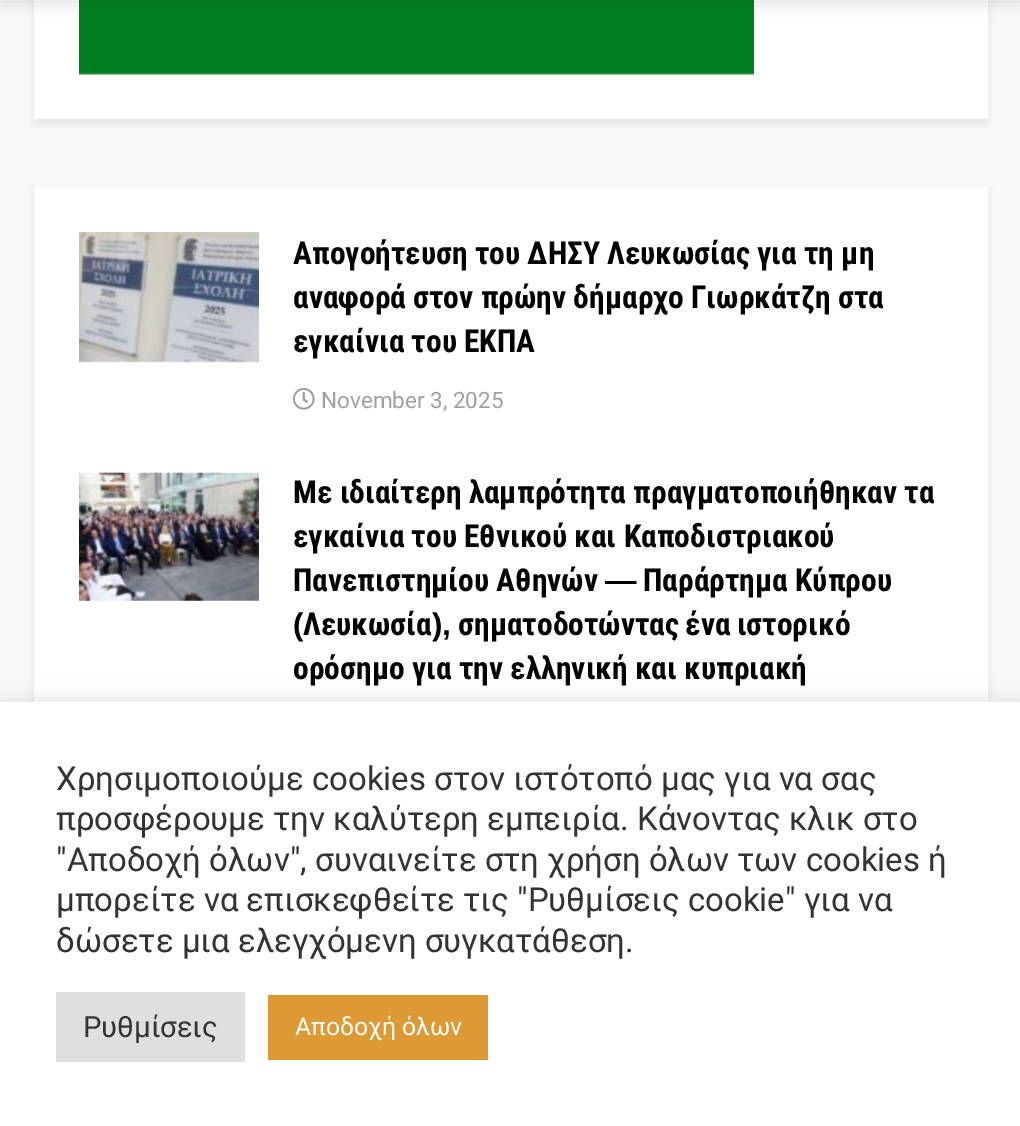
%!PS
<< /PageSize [1020 1126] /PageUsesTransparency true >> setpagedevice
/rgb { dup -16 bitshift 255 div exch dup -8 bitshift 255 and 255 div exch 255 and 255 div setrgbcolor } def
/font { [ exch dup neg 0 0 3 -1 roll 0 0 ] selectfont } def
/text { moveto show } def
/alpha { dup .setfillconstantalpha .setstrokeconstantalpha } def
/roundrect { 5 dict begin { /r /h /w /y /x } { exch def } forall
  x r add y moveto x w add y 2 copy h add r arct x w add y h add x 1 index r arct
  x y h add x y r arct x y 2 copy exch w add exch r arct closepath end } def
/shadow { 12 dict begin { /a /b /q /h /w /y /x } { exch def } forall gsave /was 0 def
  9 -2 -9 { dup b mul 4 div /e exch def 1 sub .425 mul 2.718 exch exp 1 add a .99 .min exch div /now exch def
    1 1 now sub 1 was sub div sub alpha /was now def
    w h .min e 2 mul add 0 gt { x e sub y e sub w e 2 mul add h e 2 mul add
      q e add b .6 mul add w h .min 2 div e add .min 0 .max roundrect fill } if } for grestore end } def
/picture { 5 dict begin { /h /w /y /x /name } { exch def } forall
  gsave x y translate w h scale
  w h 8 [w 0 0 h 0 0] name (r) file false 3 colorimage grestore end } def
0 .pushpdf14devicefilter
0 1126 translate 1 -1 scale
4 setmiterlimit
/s1 { /RobotoCondensed-Bold 31.5 font 16#000000 rgb } def
/s2 { /Roboto-Regular 22.5 font 16#A0A0A0 rgb } def
/s3 { /LiberationSans-Bold 31.5 font 16#000000 rgb } def
/s4 { /Roboto-Regular 33 font 16#333333 rgb } def
/s5 { /Roboto-Regular 29.25 font 16#333333 rgb } def
/s6 { /Roboto-Regular 24.75 font 16#FFFFFF rgb } def
16#F9F9F9 rgb
0 0 1020 1126 rectfill
16#000000 rgb
34 -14 954 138 0 4.5 0.08 shadow
16#FFFFFF rgb
34 0 954 119 rectfill
(pic1.raw) 79 0 675 75 picture
16#000000 rgb
0 -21 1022 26 0 7 0.1 shadow
34 191 954 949 0 4.5 0.08 shadow
16#FFFFFF rgb
34 187 954 515 rectfill
(pic3.raw) 98 361 37 1 picture
(pic2.raw) 79 232 180 131 picture
s1
(Απογοήτευση του ΔΗΣΥ Λευκωσίας για τη μη) 293 264 text
(αναφορά στον πρώην δήμαρχο Γιωρκάτζη στα) 293 308 text
(εγκαίνια του ΕΚΠΑ) 293 352 text
(pic4.raw) 292 387 23 23 picture
s2
(November 3, 2025) 321 408 text
(pic6.raw) 98 472 37 129 picture
(pic5.raw) 79 472 180 129 picture
s1
(Με ιδιαίτερη λαμπρότητα πραγματοποιήθηκαν τα) 293 503 text
(εγκαίνια του Εθνικού και Καποδιστριακού) 293 547 text
(Πανεπιστημίου Αθηνών) 293 591 text
s3
(―) 605 591 text
s1
(Παράρτημα Κύπρου) 643 591 text
s3
(\() 293 635 text
s1
(Λευκωσία) 303 635 text
s3
(\),) 432 635 text
/RobotoCondensed-Bold 31.5 font
458 635 moveto -1 0 32 (σηματοδοτώντας ένα ιστορικό) widthshow
(ορόσημο για την ελληνική και κυπριακή) 293 679 text
16#ACABAB rgb
0 700 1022 425 0 11 0.3 shadow
16#FFFFFF rgb
0 702 1020 424 rectfill
s4
(Χρησιμοποιούμε cookies στον ιστότοπό μας για να σας) 56 790 text
(προσφέρουμε την καλύτερη εμπειρία. Κάνοντας κλικ στο) 56 830 text
("Αποδοχή όλων", συναινείτε στη χρήση όλων των cookies ή) 56 871 text
(μπορείτε να επισκεφθείτε τις "Ρυθμίσεις cookie" για να) 56 911 text
(δώσετε μια ελεγχόμενη συγκατάθεση.) 56 952 text
16#DEDFE0 rgb
56 992 189 70 rectfill
s5
(Ρυθμίσεις) 83 1037 text
16#DD9933 rgb
268 995 220 65 rectfill
s6
(Αποδοχή όλων) 295 1035 text
.poppdf14devicefilter showpage
